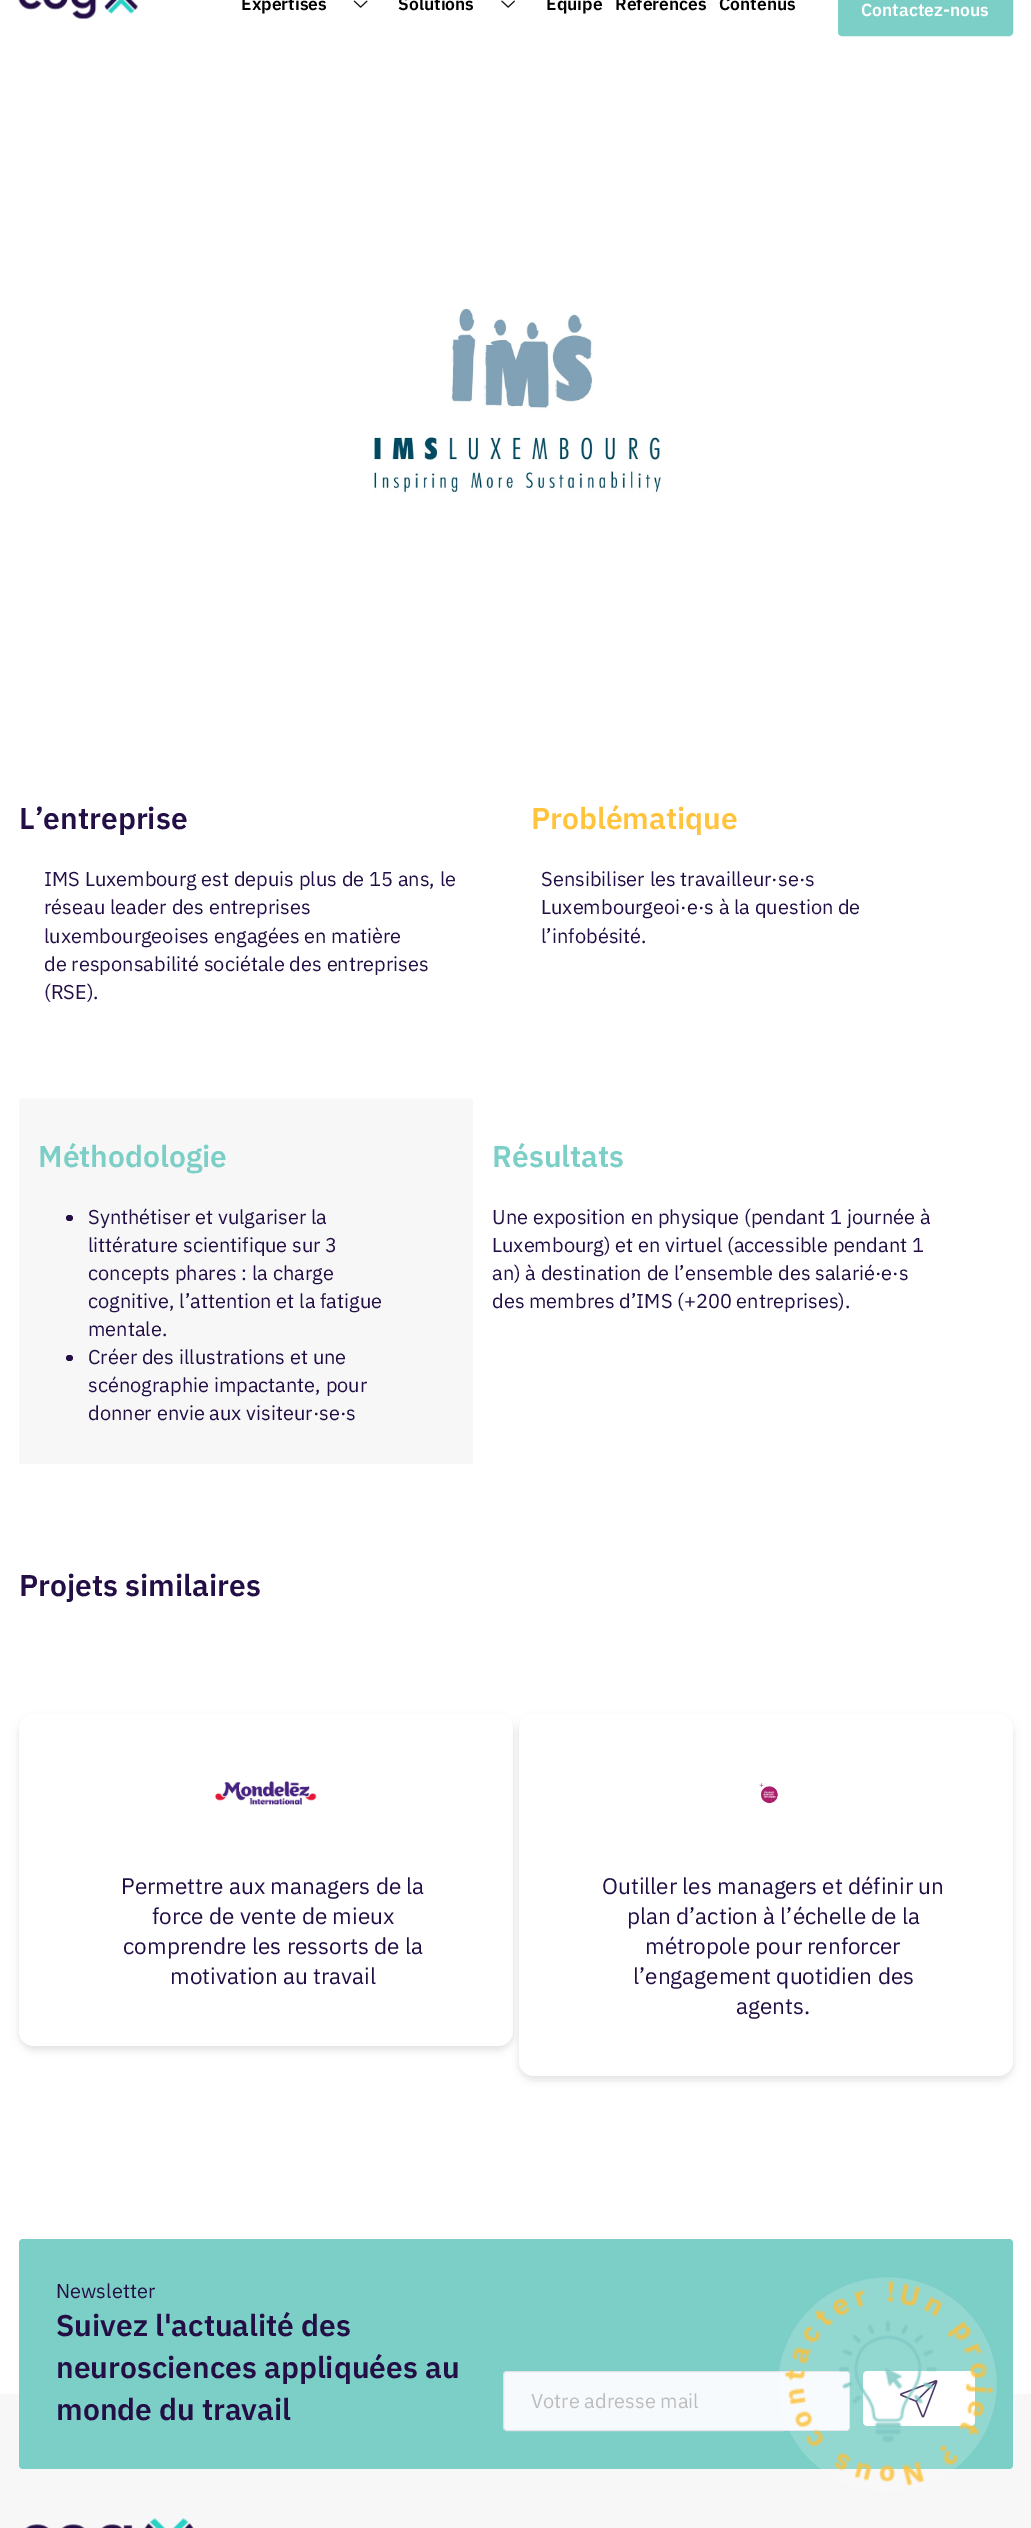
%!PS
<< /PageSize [1031 2528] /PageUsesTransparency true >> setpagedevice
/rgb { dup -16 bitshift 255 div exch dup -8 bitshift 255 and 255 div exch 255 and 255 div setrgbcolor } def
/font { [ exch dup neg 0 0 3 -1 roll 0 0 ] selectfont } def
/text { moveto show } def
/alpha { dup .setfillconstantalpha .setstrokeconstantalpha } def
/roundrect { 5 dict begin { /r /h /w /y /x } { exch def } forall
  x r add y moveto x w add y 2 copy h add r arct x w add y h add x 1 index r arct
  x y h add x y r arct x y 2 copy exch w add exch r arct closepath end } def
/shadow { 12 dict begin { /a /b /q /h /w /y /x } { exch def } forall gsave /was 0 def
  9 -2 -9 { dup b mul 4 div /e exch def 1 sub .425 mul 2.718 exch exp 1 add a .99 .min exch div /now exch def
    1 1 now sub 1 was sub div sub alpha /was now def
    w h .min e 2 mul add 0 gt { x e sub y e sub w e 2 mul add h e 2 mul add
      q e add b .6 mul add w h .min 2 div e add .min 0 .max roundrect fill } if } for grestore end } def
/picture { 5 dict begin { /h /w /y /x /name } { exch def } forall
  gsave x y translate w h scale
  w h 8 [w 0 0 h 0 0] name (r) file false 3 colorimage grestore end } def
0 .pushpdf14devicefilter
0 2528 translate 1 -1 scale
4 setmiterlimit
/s1 { /IBMPlexSans-SemiBold 17.5 font 16#000000 rgb } def
/s2 { /IBMPlexSans-SemiBold 17.5 font 16#FFFFFF rgb } def
/s3 { /IBMPlexSans-SemiBold 30 font 16#230F46 rgb } def
/s4 { /IBMPlexSans-Regular 20 font 16#230F46 rgb } def
/s5 { /IBMPlexSans-SemiBold 30 font 16#FFC33C rgb } def
/s6 { /IBMPlexSans-SemiBold 30 font 16#7BCFC6 rgb } def
/s7 { /IBMPlexSans-Regular 22.5 font 16#230F46 rgb } def
/s8 { /IBMPlexSans-Regular 20 font 16#BDBDBD rgb } def
16#FFFFFF rgb
0 0 1031 2528 rectfill
(pic1.raw) 18 0 120 19 picture
s1
(Expertises) 241 10 text
(pic2.raw) 353 0 15 8 picture
(Solutions) 398 10 text
(pic3.raw) 501 0 14 8 picture
(Équipe) 546 10 text
(Références) 615 10 text
(Contenus) 719 10 text
16#7BCFC6 rgb
840 -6 171 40 2 roundrect gsave fill grestore
4 setlinewidth
stroke
s2
(Contactez-nous) 861 16 text
16#F7F7F7 rgb
0 2394 1031 134 rectfill
16#7BCFC6 rgb
19 2239 994 230 4 roundrect fill
16#F7FAFD rgb
503.5 2371.5 346 59 3.5 roundrect gsave fill grestore
16#E0E0E8 rgb
1 setlinewidth
stroke
16#FFFFFF rgb
863 2371 112 55 4 roundrect fill
(pic8.raw) 900 2380 38 38 picture
0.18 alpha
887.5 2277.5 moveto 947.5 2277.5 996.5 2325.5 996.5 2384.5 curveto 996.5 2443.5 947.5 2491.5 887.5 2491.5 curveto 827.5 2491.5 778.5 2443.5 778.5 2384.5 curveto 778.5 2325.5 827.5 2277.5 887.5 2277.5 curveto closepath fill
1 alpha
(pic4.raw) 784 2280 209 206 picture
(pic5.raw) 373 304 289 189 picture
s3
(L’entreprise) 19 829 text
s4
(IMS Luxembourg est depuis plus de 15 ans, le) 44 886 text
(réseau leader des entreprises) 44 914 text
(luxembourgeoises engagées en matière) 44 943 text
(de responsabilité sociétale des entreprises) 44 971 text
(\(RSE\).) 44 999 text
s5
(Problématique) 531 829 text
s4
(Sensibiliser les travailleur·se·s) 541 886 text
(Luxembourgeoi·e·s à la question de) 541 914 text
(l’infobésité.) 541 943 text
16#F7F7F7 rgb
19 1099 454 365 rectfill
16#FBFBFB rgb
19 1098 453 1 rectfill
s6
(Méthodologie) 38 1167 text
16#230F46 rgb
66 1215 7 6 3 roundrect fill
s4
(Synthétiser et vulgariser la) 88 1224 text
(littérature scientifique sur 3) 88 1252 text
(concepts phares : la charge) 88 1280 text
(cognitive, l’attention et la fatigue) 88 1308 text
(mentale.) 88 1336 text
66 1355 7 6 3 roundrect fill
(Créer des illustrations et une) 88 1364 text
(scénographie impactante, pour) 88 1392 text
(donner envie aux visiteur·se·s) 88 1420 text
s6
(Résultats) 492 1167 text
s4
(Une exposition en physique \(pendant 1 journée à) 492 1224 text
(Luxembourg\) et en virtuel \(accessible pendant 1) 492 1252 text
(an\) à destination de l’ensemble des salarié·e·s) 492 1280 text
(des membres d’IMS \(+200 entreprises\).) 492 1308 text
s3
(Projets similaires) 19 1596 text
16#828282 rgb
19 1718 494 332 15 4 0.25 shadow
16#FFFFFF rgb
19 1714 494 332 15 roundrect fill
(pic6.raw) 215 1781 102 24 picture
s7
(Permettre aux managers de la) 121 1894 text
(force de vente de mieux) 152 1924 text
(comprendre les ressorts de la) 123 1954 text
(motivation au travail) 170 1984 text
16#828282 rgb
519 1718 494 362 15 4 0.25 shadow
16#FFFFFF rgb
519 1714 494 362 15 roundrect fill
(pic7.raw) 759 1783 19 21 picture
s7
(Outiller les managers et définir un) 602 1894 text
(plan d’action à l’échelle de la) 627 1924 text
(métropole pour renforcer) 645 1954 text
(l’engagement quotidien des) 633 1984 text
(agents.) 736 2014 text
s4
(Newsletter) 56 2298 text
s3
(Suivez l'actualité des) 56 2336 text
(neurosciences appliquées au) 56 2378 text
(monde du travail) 56 2420 text
s8
(Votre adresse mail) 531 2408 text
(pic9.raw) 25 2518 169 10 picture
.poppdf14devicefilter showpage
